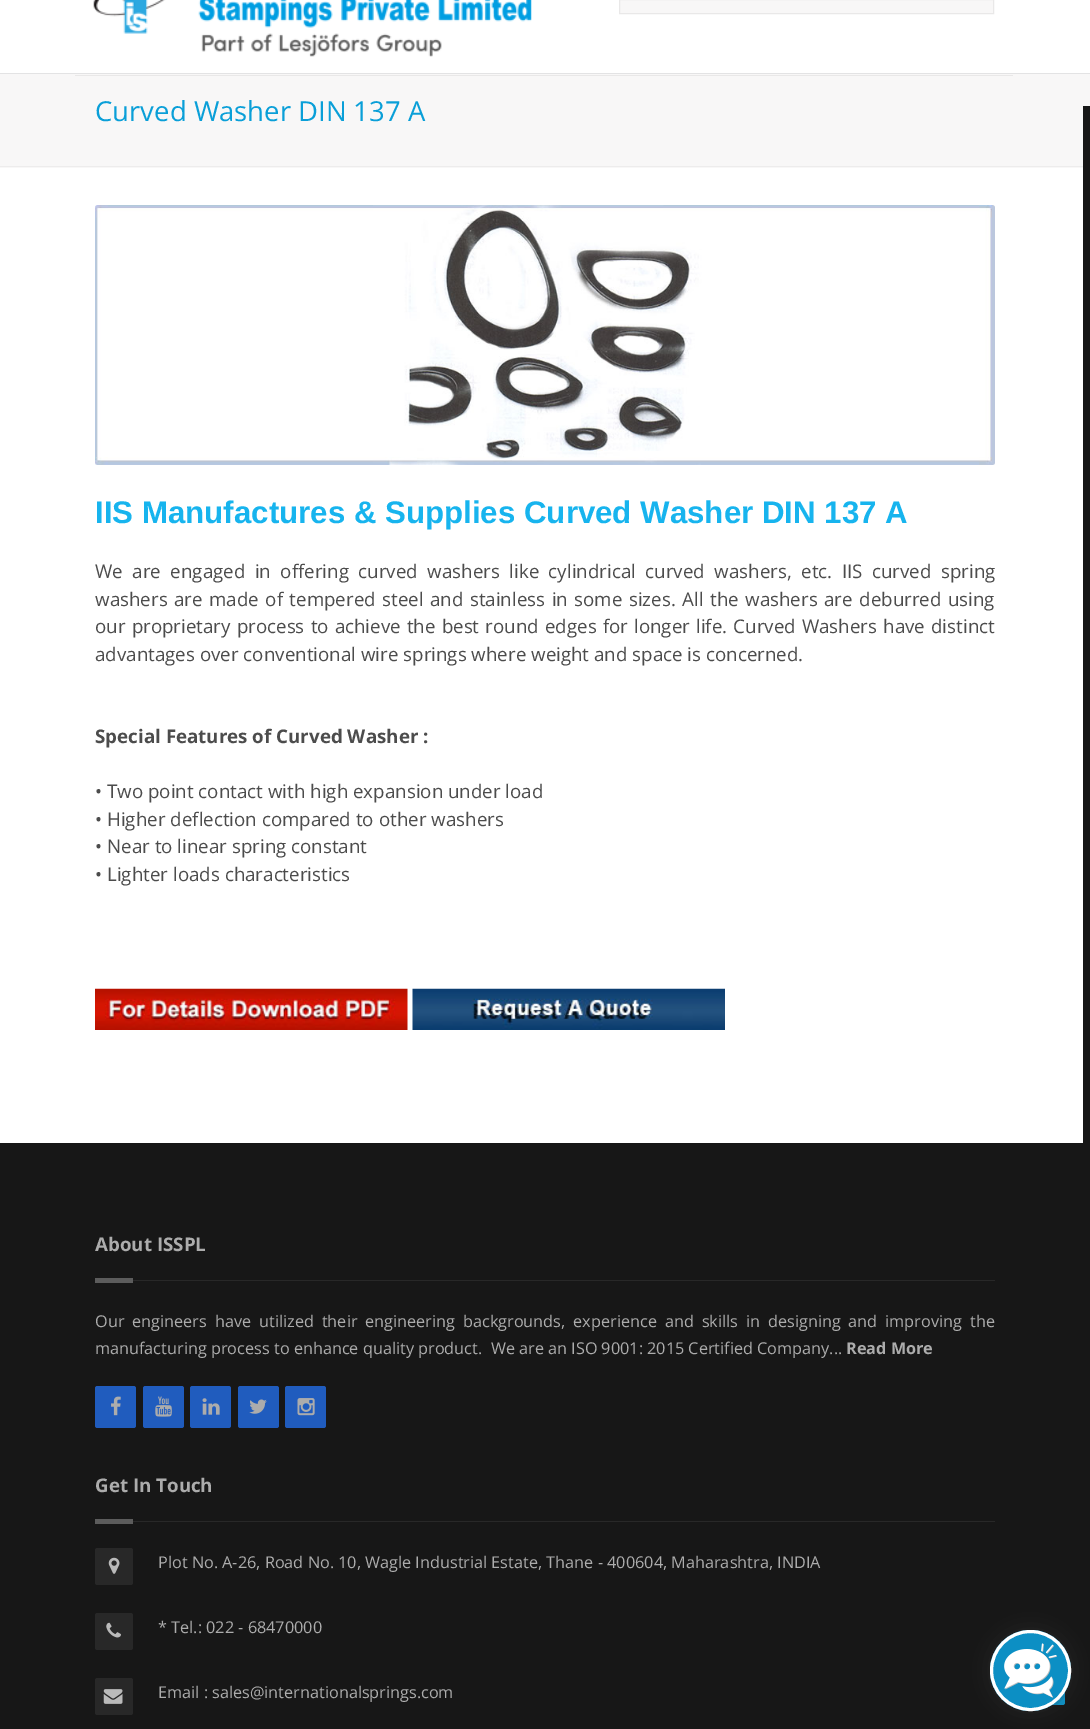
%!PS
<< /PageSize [1090 1729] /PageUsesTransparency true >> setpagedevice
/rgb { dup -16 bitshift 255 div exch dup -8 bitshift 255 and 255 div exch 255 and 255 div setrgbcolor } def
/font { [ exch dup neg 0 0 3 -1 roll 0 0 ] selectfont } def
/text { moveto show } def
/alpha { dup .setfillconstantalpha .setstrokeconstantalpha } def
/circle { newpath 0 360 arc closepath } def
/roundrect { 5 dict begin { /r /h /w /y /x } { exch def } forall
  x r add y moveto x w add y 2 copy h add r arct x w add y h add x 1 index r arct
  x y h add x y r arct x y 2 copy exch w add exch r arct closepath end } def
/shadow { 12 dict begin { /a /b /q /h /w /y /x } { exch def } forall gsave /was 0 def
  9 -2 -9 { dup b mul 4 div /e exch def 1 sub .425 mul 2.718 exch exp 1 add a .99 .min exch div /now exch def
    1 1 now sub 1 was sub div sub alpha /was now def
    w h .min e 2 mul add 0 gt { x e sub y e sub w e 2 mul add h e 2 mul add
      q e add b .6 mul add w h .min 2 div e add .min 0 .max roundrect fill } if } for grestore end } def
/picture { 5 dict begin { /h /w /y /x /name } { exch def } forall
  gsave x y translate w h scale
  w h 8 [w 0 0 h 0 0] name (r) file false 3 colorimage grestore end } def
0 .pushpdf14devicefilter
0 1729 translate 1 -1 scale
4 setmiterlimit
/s1 { /OpenSans-Regular 27.5 font 16#0A9FD8 rgb } def
/s2 { /LiberationSans-Bold 31.25 font 16#17B4EE rgb } def
/s3 { /OpenSans-Regular 18.75 font 16#4C4C4C rgb } def
/s4 { /OpenSans-Bold 18.75 font 16#4C4C4C rgb } def
/s5 { /OpenSans-Bold 18.75 font 16#ACACAC rgb } def
/s6 { /OpenSans-Regular 16.25 font 16#ACACAC rgb } def
/s7 { /OpenSans-Bold 16.25 font 16#ACACAC rgb } def
16#FFFFFF rgb
0 0 1090 1729 rectfill
(pic1.raw) 93 0 439 57 picture
16#F8F7F7 rgb
619.5 -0.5 moveto 993.5 -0.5 lineto 993.5 13.5 lineto 619.5 13.5 lineto closepath gsave fill grestore
16#E9E8E8 rgb
stroke
16#F8F7F7 rgb
0 74 1090 94 rectfill
16#E9E8E8 rgb
75 75 938 1 rectfill
16#E3E3E4 rgb
0 73 1090 1 rectfill
16#EDECEC rgb
0 166 1090 1 rectfill
s1
(Curved Washer DIN 137 A) 95 121 text
16#171717 rgb
1083 106 7 1037 rectfill
(pic2.raw) 95 205 900 260 picture
s2
(IIS Manufactures & Supplies Curved Washer DIN 137 A) 95 523 text
/OpenSans-Regular 18.75 font
16#4C4C4C rgb
95 578 moveto 4.6 0 32 (We are engaged in offering curved washers like cylindrical curved washers, etc. IIS curved spring) widthshow
95 606 moveto 1.6 0 32 (washers are made of tempered steel and stainless in some sizes. All the washers are deburred using) widthshow
95 633 moveto 1.25 0 32 (our proprietary process to achieve the best round edges for longer life. Curved Washers have distinct) widthshow
(advantages over conventional wire springs where weight and space is concerned.) 95 661 text
s4
(Special Features of Curved Washer :) 95 743 text
s3
(• Two point contact with high expansion under load) 95 798 text
(• Higher deflection compared to other washers) 95 826 text
(• Near to linear spring constant) 95 853 text
(• Lighter loads characteristics) 95 881 text
(pic3.raw) 95 988 313 42 picture
(pic4.raw) 412 988 313 42 picture
16#171717 rgb
0 1143 1090 586 rectfill
16#282828 rgb
133 1280 862 1 rectfill
s5
(About ISSPL) 95 1251 text
16#5C5C5C rgb
95 1278 38 5 rectfill
/OpenSans-Regular 16.25 font
16#ACACAC rgb
95 1327 moveto 3.75 0 32 (Our engineers have utilized their engineering backgrounds, experience and skills in designing and improving the) widthshow
(manufacturing process to enhance quality product.  We are an ISO 9001: 2015 Certified Company...) 95 1354 text
s7
(Read More) 846 1354 text
16#205CBE rgb
95 1386 41 42 2.5 roundrect fill
(pic5.raw) 111 1396 10 20 picture
143 1386 41 42 2.5 roundrect fill
(pic6.raw) 155 1396 17 21 picture
190 1386 41 42 2.5 roundrect fill
(pic7.raw) 202 1398 18 17 picture
238 1386 41 42 2.5 roundrect fill
(pic8.raw) 249 1399 18 15 picture
285 1386 41 42 2.5 roundrect fill
(pic9.raw) 297 1398 18 18 picture
16#282828 rgb
133 1521 862 1 rectfill
s5
(Get In Touch) 95 1492 text
16#5C5C5C rgb
95 1519 38 5 rectfill
16#282828 rgb
95 1548 38 37 2.5 roundrect fill
(pic10.raw) 108 1557 12 17 picture
s6
(Plot No. A-26, Road No. 10, Wagle Industrial Estate, Thane - 400604, Maharashtra, INDIA) 158 1568 text
16#282828 rgb
95 1613 38 37 2.5 roundrect fill
(pic11.raw) 106 1622 15 16 picture
s6
(* Tel.: 022 - 68470000) 158 1633 text
16#282828 rgb
95 1678 38 37 2.5 roundrect fill
(pic12.raw) 103 1689 20 15 picture
s6
(Email : sales@internationalsprings.com) 158 1698 text
16#0A9FD8 rgb
1015 1655 50 50 2.5 roundrect fill
16#323232 rgb
990 1630 81 81 40.5 10.5 0.5 shadow
16#0C8FC4 rgb
1030.5 1670.5 40.5 circle fill
(pic13.raw) 1004 1643 53 55 picture
16#FFFFFF rgb
3 setlinewidth
1030.5 1670.5 39 circle stroke
.poppdf14devicefilter showpage
